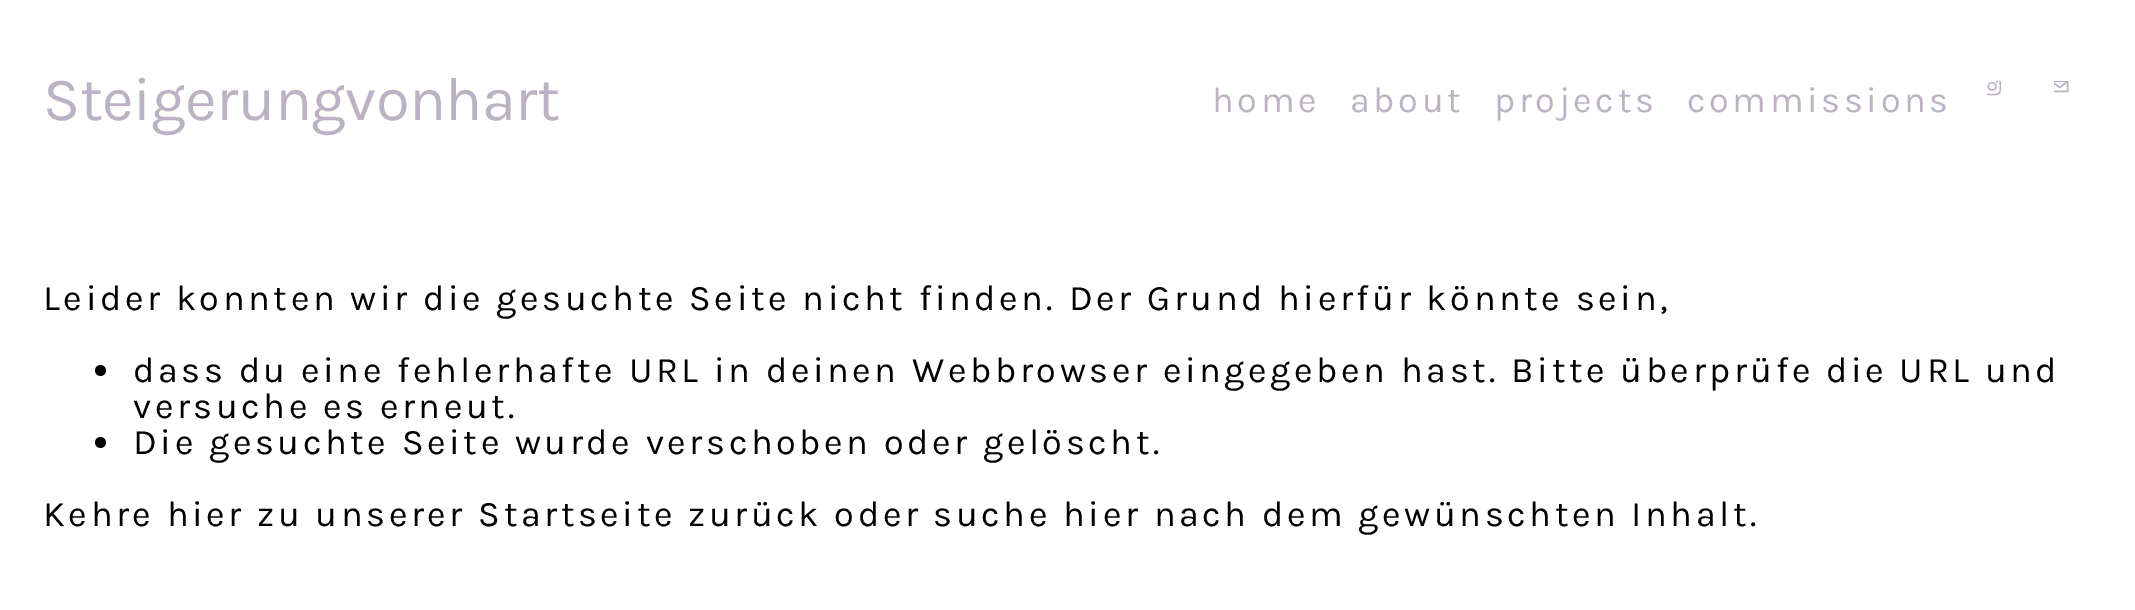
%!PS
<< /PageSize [2135 610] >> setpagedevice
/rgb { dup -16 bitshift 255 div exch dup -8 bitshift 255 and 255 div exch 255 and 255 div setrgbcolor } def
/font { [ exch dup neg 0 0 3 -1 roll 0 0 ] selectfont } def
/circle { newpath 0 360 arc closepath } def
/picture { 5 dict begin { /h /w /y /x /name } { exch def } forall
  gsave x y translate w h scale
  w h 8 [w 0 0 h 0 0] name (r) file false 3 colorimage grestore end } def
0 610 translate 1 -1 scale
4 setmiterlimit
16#FFFFFF rgb
0 0 2135 610 rectfill
/Karla-Regular 61.6 font
16#BDB2C3 rgb
43 120 moveto -0.6 0 (Steigerungvonhart) ashow
/Karla-Regular 36 font
1212 112 moveto 3.6 0 (home) ashow
1350 112 moveto 3.6 0 (about) ashow
1494 112 moveto 3.6 0 (projects) ashow
1687 112 moveto 3.6 0 (commissions) ashow
(pic1.raw) 1987 81 15 15 picture
(pic2.raw) 2054 81 15 12 picture
16#000000 rgb
43 310 moveto 3.6 0 (Leider konnten wir die gesuchte Seite nicht finden. Der Grund hierfür könnte sein,) ashow
100.5 370.5 5.5 circle fill
133 382 moveto 3.6 0 (dass du eine fehlerhafte URL in deinen Webbrowser eingegeben hast. Bitte überprüfe die URL und) ashow
133 418 moveto 3.6 0 (versuche es erneut.) ashow
100.5 442.5 5.5 circle fill
133 454 moveto 3.6 0 (Die gesuchte Seite wurde verschoben oder gelöscht.) ashow
43 526 moveto 3.6 0 (Kehre hier zu unserer Startseite zurück oder suche hier nach dem gewünschten Inhalt.) ashow
showpage
